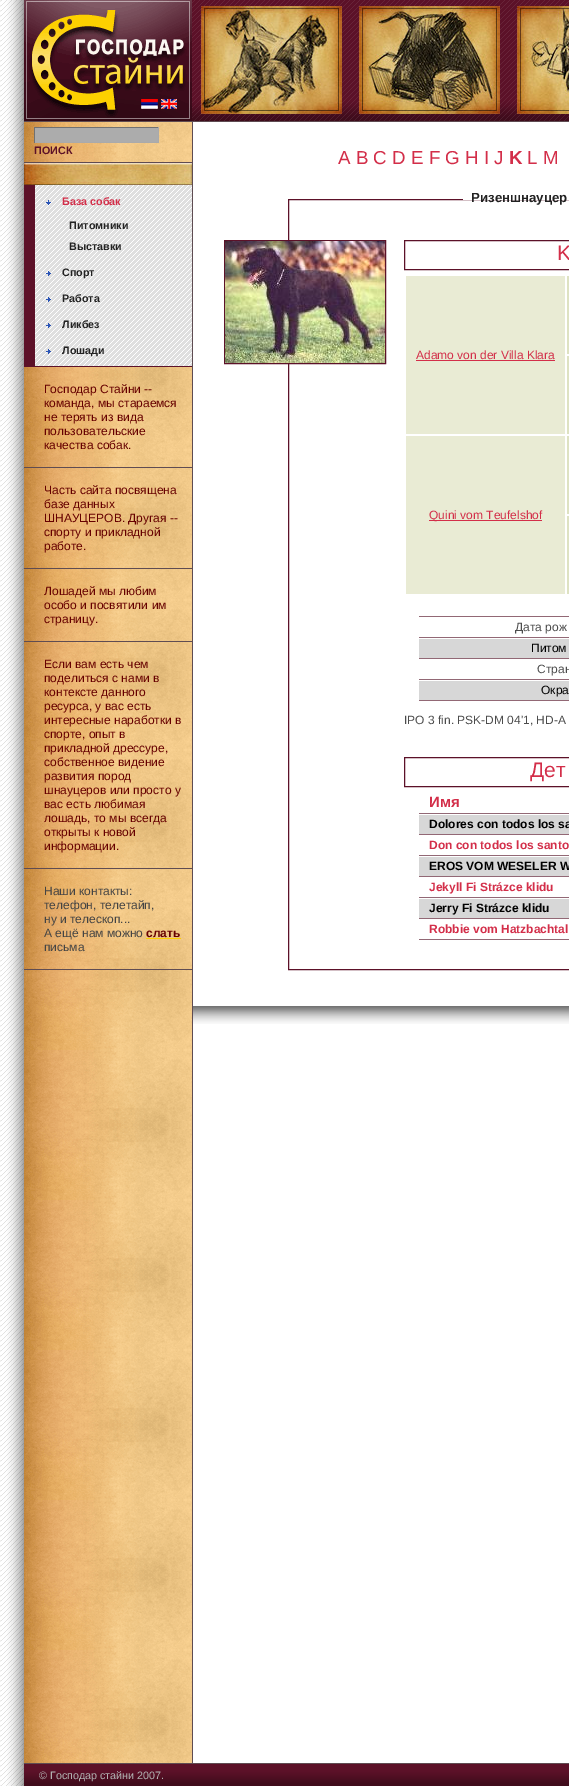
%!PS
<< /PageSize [569 1786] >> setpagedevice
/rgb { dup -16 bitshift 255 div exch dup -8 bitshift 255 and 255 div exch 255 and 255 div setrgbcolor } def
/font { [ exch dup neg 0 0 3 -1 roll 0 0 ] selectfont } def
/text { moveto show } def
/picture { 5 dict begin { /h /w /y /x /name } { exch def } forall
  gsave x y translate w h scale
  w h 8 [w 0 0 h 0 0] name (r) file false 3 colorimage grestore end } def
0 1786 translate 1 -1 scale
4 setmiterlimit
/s1 { /LiberationSans-Bold 10.75 font 16#5C1128 rgb } def
/s2 { /LiberationSans-Bold 10.75 font 16#D32E49 rgb } def
/s3 { /LiberationSans-Bold 10.75 font 16#222222 rgb } def
/s4 { /LiberationSans-Regular 12 font 16#660000 rgb } def
/s5 { /LiberationSans-Regular 12 font 16#444444 rgb } def
/s6 { /LiberationSans-Bold 12 font 16#660000 rgb } def
/s7 { /LiberationSans-Regular 18.75 font 16#D32E49 rgb } def
/s8 { /LiberationSans-Bold 18.75 font 16#D32E49 rgb } def
/s9 { /LiberationSans-Bold 13.25 font 16#222222 rgb } def
/s10 { /LiberationSans-Regular 21 font 16#D32E49 rgb } def
/s11 { /LiberationSans-Regular 12 font 16#D32E49 rgb } def
/s12 { /LiberationSans-Regular 12 font 16#4C4C4C rgb } def
/s13 { /LiberationSans-Regular 12 font 16#000000 rgb } def
/s14 { /LiberationSans-Bold 15 font 16#D32E49 rgb } def
/s15 { /LiberationSans-Bold 12 font 16#000000 rgb } def
/s16 { /LiberationSans-Bold 12 font 16#D32E49 rgb } def
/s17 { /LiberationSans-Regular 10.75 font 16#B2B2B2 rgb } def
16#FFFFFF rgb
0 0 569 1786 rectfill
(pic1.raw) 0 0 1 1786 picture
(pic2.raw) 1 0 192 1786 picture
(pic3.raw) 192 0 377 121 picture
16#5F4C52 rgb
24 121 545 1 rectfill
(pic4.raw) 24 0 168 121 picture
(pic5.raw) 201 110 141 4 picture
(pic6.raw) 201 6 141 104 picture
(pic7.raw) 359 110 141 4 picture
(pic8.raw) 359 6 141 104 picture
(pic9.raw) 517 110 52 4 picture
(pic10.raw) 517 6 52 104 picture
(pic11.raw) 141 99 17 10 picture
(pic12.raw) 161 99 16 10 picture
24 162 168 1 rectfill
16#ACACAC rgb
35 128 123 14 rectfill
16#717171 rgb
34 127 125 1 rectfill
16#AAAAAA rgb
158 127 1 16 rectfill
34 142 125 1 rectfill
16#717171 rgb
34 127 1 16 rectfill
s1
(ПОИСК) 34 154 text
24 366 168 1 rectfill
(pic13.raw) 24 163 168 22 picture
16#DFDFDF rgb
35 185 157 181 rectfill
(pic14.raw) 35 185 157 181 picture
16#5C1128 rgb
24 185 11 181 rectfill
(pic15.raw) 46 200 5 5 picture
s2
(База собак) 62 205 text
s3
(Питомники) 69 229 text
(Выставки) 69 250 text
(pic16.raw) 46 271 5 5 picture
(Спорт) 62 276 text
(pic17.raw) 46 297 5 5 picture
(Работа) 62 302 text
(pic18.raw) 46 323 5 5 picture
(Ликбез) 62 328 text
(pic19.raw) 46 349 5 5 picture
(Лошади) 62 354 text
16#5F4C52 rgb
24 467 168 1 rectfill
s4
(Господар Стайни --) 44 393 text
(команда, мы стараемся) 44 407 text
(не терять из вида) 44 421 text
(пользовательские) 44 435 text
(качества собак.) 44 449 text
16#5F4C52 rgb
24 568 168 1 rectfill
s4
(Часть сайта посвящена) 44 494 text
(базе данных) 44 508 text
(ШНАУЦЕРОВ. Другая --) 44 522 text
(спорту и прикладной) 44 536 text
(работе.) 44 550 text
16#5F4C52 rgb
24 641 168 1 rectfill
s4
(Лошадей мы любим) 44 595 text
(особо и посвятили им) 44 609 text
(страницу.) 44 623 text
16#5F4C52 rgb
24 868 168 1 rectfill
s4
(Если вам есть чем) 44 668 text
(поделиться с нами в) 44 682 text
(контексте данного) 44 696 text
(ресурса, у вас есть) 44 710 text
(интересные наработки в) 44 724 text
(спорте, опыт в) 44 738 text
(прикладной дрессуре,) 44 752 text
(собственное видение) 44 766 text
(развития пород) 44 780 text
(шнауцеров или просто у) 44 794 text
(вас есть любимая) 44 808 text
(лошадь, то мы всегда) 44 822 text
(открыты к новой) 44 836 text
(информации.) 44 850 text
16#5F4C52 rgb
24 969 168 1 rectfill
s5
(Наши контакты:) 44 895 text
(телефон, телетайп,) 44 909 text
(ну и телескоп...) 44 923 text
(А ещё нам можно) 44 937 text
s6
(слать) 146 937 text
16#FDD000 rgb
146 938 35 1 rectfill
s5
(письма) 44 951 text
s7
(A B C D E F G H I J) 338 164 text
s8
(K) 509 164 text
s7
(L M) 527 164 text
16#5C1128 rgb
288.5 199.5 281 770 rectstroke
16#FFFFFF rgb
463 199 106 1 rectfill
s9
(Ризеншнауцер) 471 202 text
16#5C1128 rgb
224.5 240.5 161 123 rectstroke
(pic20.raw) 225 241 160 122 picture
404.5 240.5 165 29 rectstroke
s10
(K) 557 260 text
16#DEE2C2 rgb
567 276 2 78 rectfill
16#E9EBD4 rgb
406 276 159 158 rectfill
s11
(Adamo von der Villa Klara) 416 359 text
416 360 139 1 rectfill
16#DEE2C2 rgb
567 356 2 78 rectfill
567 436 2 78 rectfill
16#E9EBD4 rgb
406 436 159 158 rectfill
16#D32E49 rgb
429 520 113 1 rectfill
(Quini vom Teufelshof) 429 519 text
16#DEE2C2 rgb
567 516 2 78 rectfill
16#926875 rgb
419 616 150 1 rectfill
s12
(Дата рож) 515 631 text
16#D7D7D7 rgb
419 639 150 19 rectfill
16#926875 rgb
419 637 150 1 rectfill
s13
(Питом) 531 652 text
16#926875 rgb
419 658 150 1 rectfill
s12
(Стран) 537 673 text
16#D7D7D7 rgb
419 681 150 19 rectfill
16#926875 rgb
419 679 150 1 rectfill
419 700 150 1 rectfill
s13
(Oкра) 541 694 text
s12
(IPO 3 fin. PSK-DM 04'1, HD-A) 404 724 text
16#5C1128 rgb
404.5 757.5 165 29 rectstroke
s10
(Дет) 530 777 text
s14
(Имя) 429 807 text
16#D7D7D7 rgb
419 815 150 19 rectfill
16#926875 rgb
419 813 150 1 rectfill
s15
(Dolores con todos los sa) 429 828 text
16#926875 rgb
419 834 150 1 rectfill
s16
(Don con todos los santo) 429 849 text
16#D7D7D7 rgb
419 857 150 19 rectfill
16#926875 rgb
419 855 150 1 rectfill
s15
(EROS VOM WESELER W) 429 870 text
16#926875 rgb
419 876 150 1 rectfill
s16
(Jekyll Fi Strázce klidu) 429 891 text
16#D7D7D7 rgb
419 899 150 19 rectfill
16#926875 rgb
419 897 150 1 rectfill
s15
(Jerry Fi Strázce klidu) 429 912 text
16#926875 rgb
419 918 150 1 rectfill
419 939 150 1 rectfill
s16
(Robbie vom Hatzbachtal) 429 933 text
(pic21.raw) 193 1006 376 18 picture
16#5F4C52 rgb
24 1763 545 1 rectfill
(pic22.raw) 24 1764 545 22 picture
s17
(© Господар стайни 2007.) 39 1779 text
showpage
